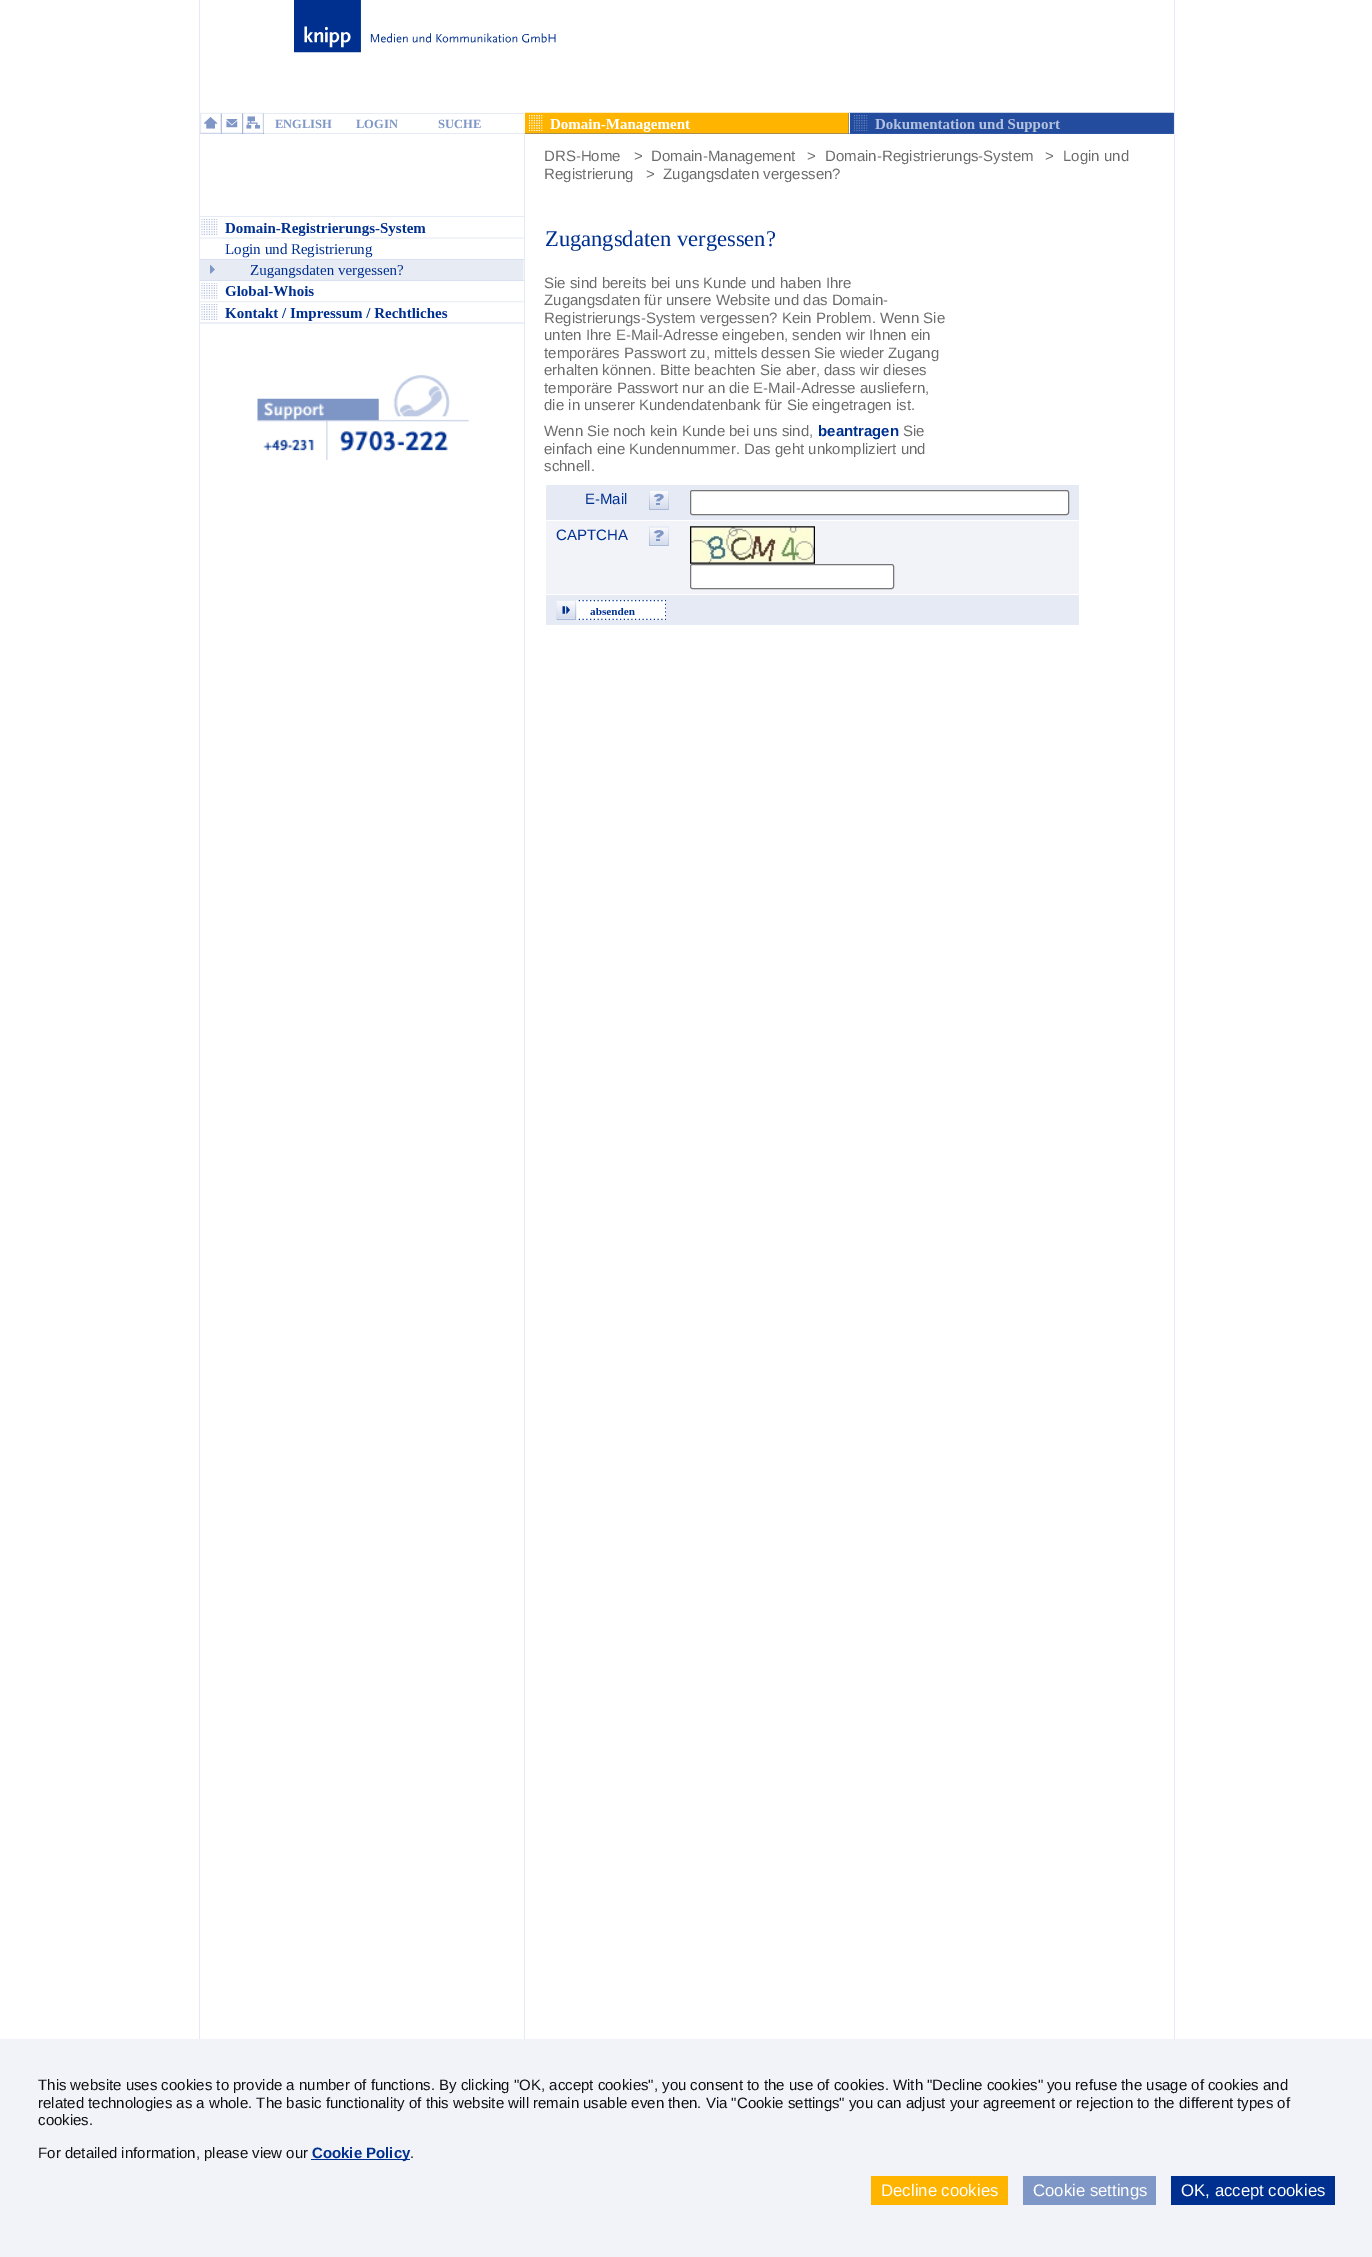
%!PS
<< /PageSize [1372 2257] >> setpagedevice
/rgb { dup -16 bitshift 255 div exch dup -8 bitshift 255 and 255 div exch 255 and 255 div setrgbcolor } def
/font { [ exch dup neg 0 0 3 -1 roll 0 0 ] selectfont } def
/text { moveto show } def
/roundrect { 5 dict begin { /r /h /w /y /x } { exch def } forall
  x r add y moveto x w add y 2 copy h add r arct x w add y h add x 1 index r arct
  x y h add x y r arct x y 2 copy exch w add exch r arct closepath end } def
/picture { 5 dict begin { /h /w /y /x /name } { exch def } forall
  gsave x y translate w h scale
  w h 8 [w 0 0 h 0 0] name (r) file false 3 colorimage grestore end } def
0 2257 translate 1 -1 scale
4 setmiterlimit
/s1 { /LiberationSerif-Bold 12.5 font 16#7F97C7 rgb } def
/s2 { /LiberationSans-Regular 15 font 16#6C6C6C rgb } def
/s3 { /LiberationSerif-Regular 15 font 16#00308F rgb } def
/s4 { /LiberationSerif-Regular 22.5 font 16#00308F rgb } def
/s5 { /LiberationSans-Bold 15 font 16#00308F rgb } def
/s6 { /LiberationSans-Regular 15 font 16#00308F rgb } def
/s7 { /LiberationSans-Regular 15 font 16#111111 rgb } def
/s8 { /LiberationSans-Regular 16.75 font 16#FFFFFF rgb } def
16#FFFFFF rgb
0 0 1372 2257 rectfill
16#E5EAF4 rgb
199 0 1 2039 rectfill
(pic1.raw) 294 0 262 53 picture
1174 0 1 2039 rectfill
16#3B60A9 rgb
200 113 974 21 rectfill
(pic2.raw) 200 112 22 22 picture
(pic3.raw) 221 112 22 22 picture
(pic4.raw) 242 112 22 22 picture
16#FFFFFF rgb
264 114 260 19 rectfill
s1
(ENGLISH) 275 128 text
16#E5EAF4 rgb
264 113 260 1 rectfill
264 133 260 1 rectfill
s1
(LOGIN) 356 128 text
(SUCHE) 438 128 text
(pic5.raw) 523 112 326 22 picture
(pic6.raw) 848 112 326 22 picture
16#E5EAF4 rgb
524 135 1 1904 rectfill
s2
(DRS-Home) 544 161 text
(>) 634 161 text
(Domain-Management) 651 161 text
(>) 807 161 text
(Domain-Registrierungs-System) 825 161 text
(>) 1045 161 text
(Login und) 1063 161 text
(Registrierung) 544 179 text
(>) 646 179 text
(Zugangsdaten vergessen?) 663 179 text
16#E5EAF4 rgb
200 216 324 1 rectfill
(pic7.raw) 200 219 324 20 picture
s3
(Login und Registrierung) 225 254 text
16#D8E0F2 rgb
200 259 324 1 rectfill
(pic8.raw) 200 260 324 21 picture
(pic9.raw) 200 283 324 20 picture
(pic10.raw) 200 304 324 20 picture
(pic11.raw) 257 375 212 86 picture
s4
(Zugangsdaten vergessen?) 545 246 text
s2
(Sie sind bereits bei uns Kunde und haben Ihre) 544 288 text
(Zugangsdaten für unsere Website und das Domain-) 544 305 text
(Registrierungs-System vergessen? Kein Problem. Wenn Sie) 544 323 text
(unten Ihre E-Mail-Adresse eingeben, senden wir Ihnen ein) 544 340 text
(temporäres Passwort zu, mittels dessen Sie wieder Zugang) 544 358 text
(erhalten können. Bitte beachten Sie aber, dass wir dieses) 544 375 text
(temporäre Passwort nur an die E-Mail-Adresse ausliefern,) 544 393 text
(die in unserer Kundendatenbank für Sie eingetragen ist.) 544 410 text
(Wenn Sie noch kein Kunde bei uns sind,) 544 436 text
s5
(beantragen) 818 436 text
s2
(Sie) 903 436 text
(einfach eine Kundennummer. Das geht unkompliziert und) 544 454 text
(schnell.) 544 471 text
16#E5EAF4 rgb
546 485 533 35 rectfill
s6
(E-Mail) 585 504 text
(pic12.raw) 649 491 20 19 picture
16#FFFFFF rgb
690.5 490.5 378 24 2 roundrect gsave fill grestore
16#767676 rgb
stroke
16#F1F3F9 rgb
546 521 533 73 rectfill
s6
(CAPTCHA) 556 540 text
(pic13.raw) 649 526 20 20 picture
(pic14.raw) 690 526 125 38 picture
16#FFFFFF rgb
690.5 564.5 203 24 2 roundrect gsave fill grestore
16#767676 rgb
stroke
16#E5EAF4 rgb
546 595 533 30 rectfill
(pic15.raw) 556 600 110 20 picture
16#F1F3F9 rgb
0 2039 1372 218 rectfill
s7
(This website uses cookies to provide a number of functions. By clicking "OK, accept cookies", you consent to the use of cookies. With "Decline cookies" you refuse the usage of cookies and) 38 2090 text
(related technologies as a whole. The basic functionality of this website will remain usable even then. Via "Cookie settings" you can adjust your agreement or rejection to the different types of) 38 2108 text
(cookies.) 38 2125 text
(For detailed information, please view our) 38 2158 text
16#00308F rgb
311 2159 99 1 rectfill
s5
(Cookie Policy) 312 2158 text
s7
(.) 410 2158 text
16#FFB400 rgb
871 2176 137 29 rectfill
s8
(Decline cookies) 881 2196 text
16#7F97C7 rgb
1023 2176 133 29 rectfill
s8
(Cookie settings) 1033 2196 text
16#00308F rgb
1171 2176 164 29 rectfill
s8
(OK, accept cookies) 1181 2196 text
showpage
